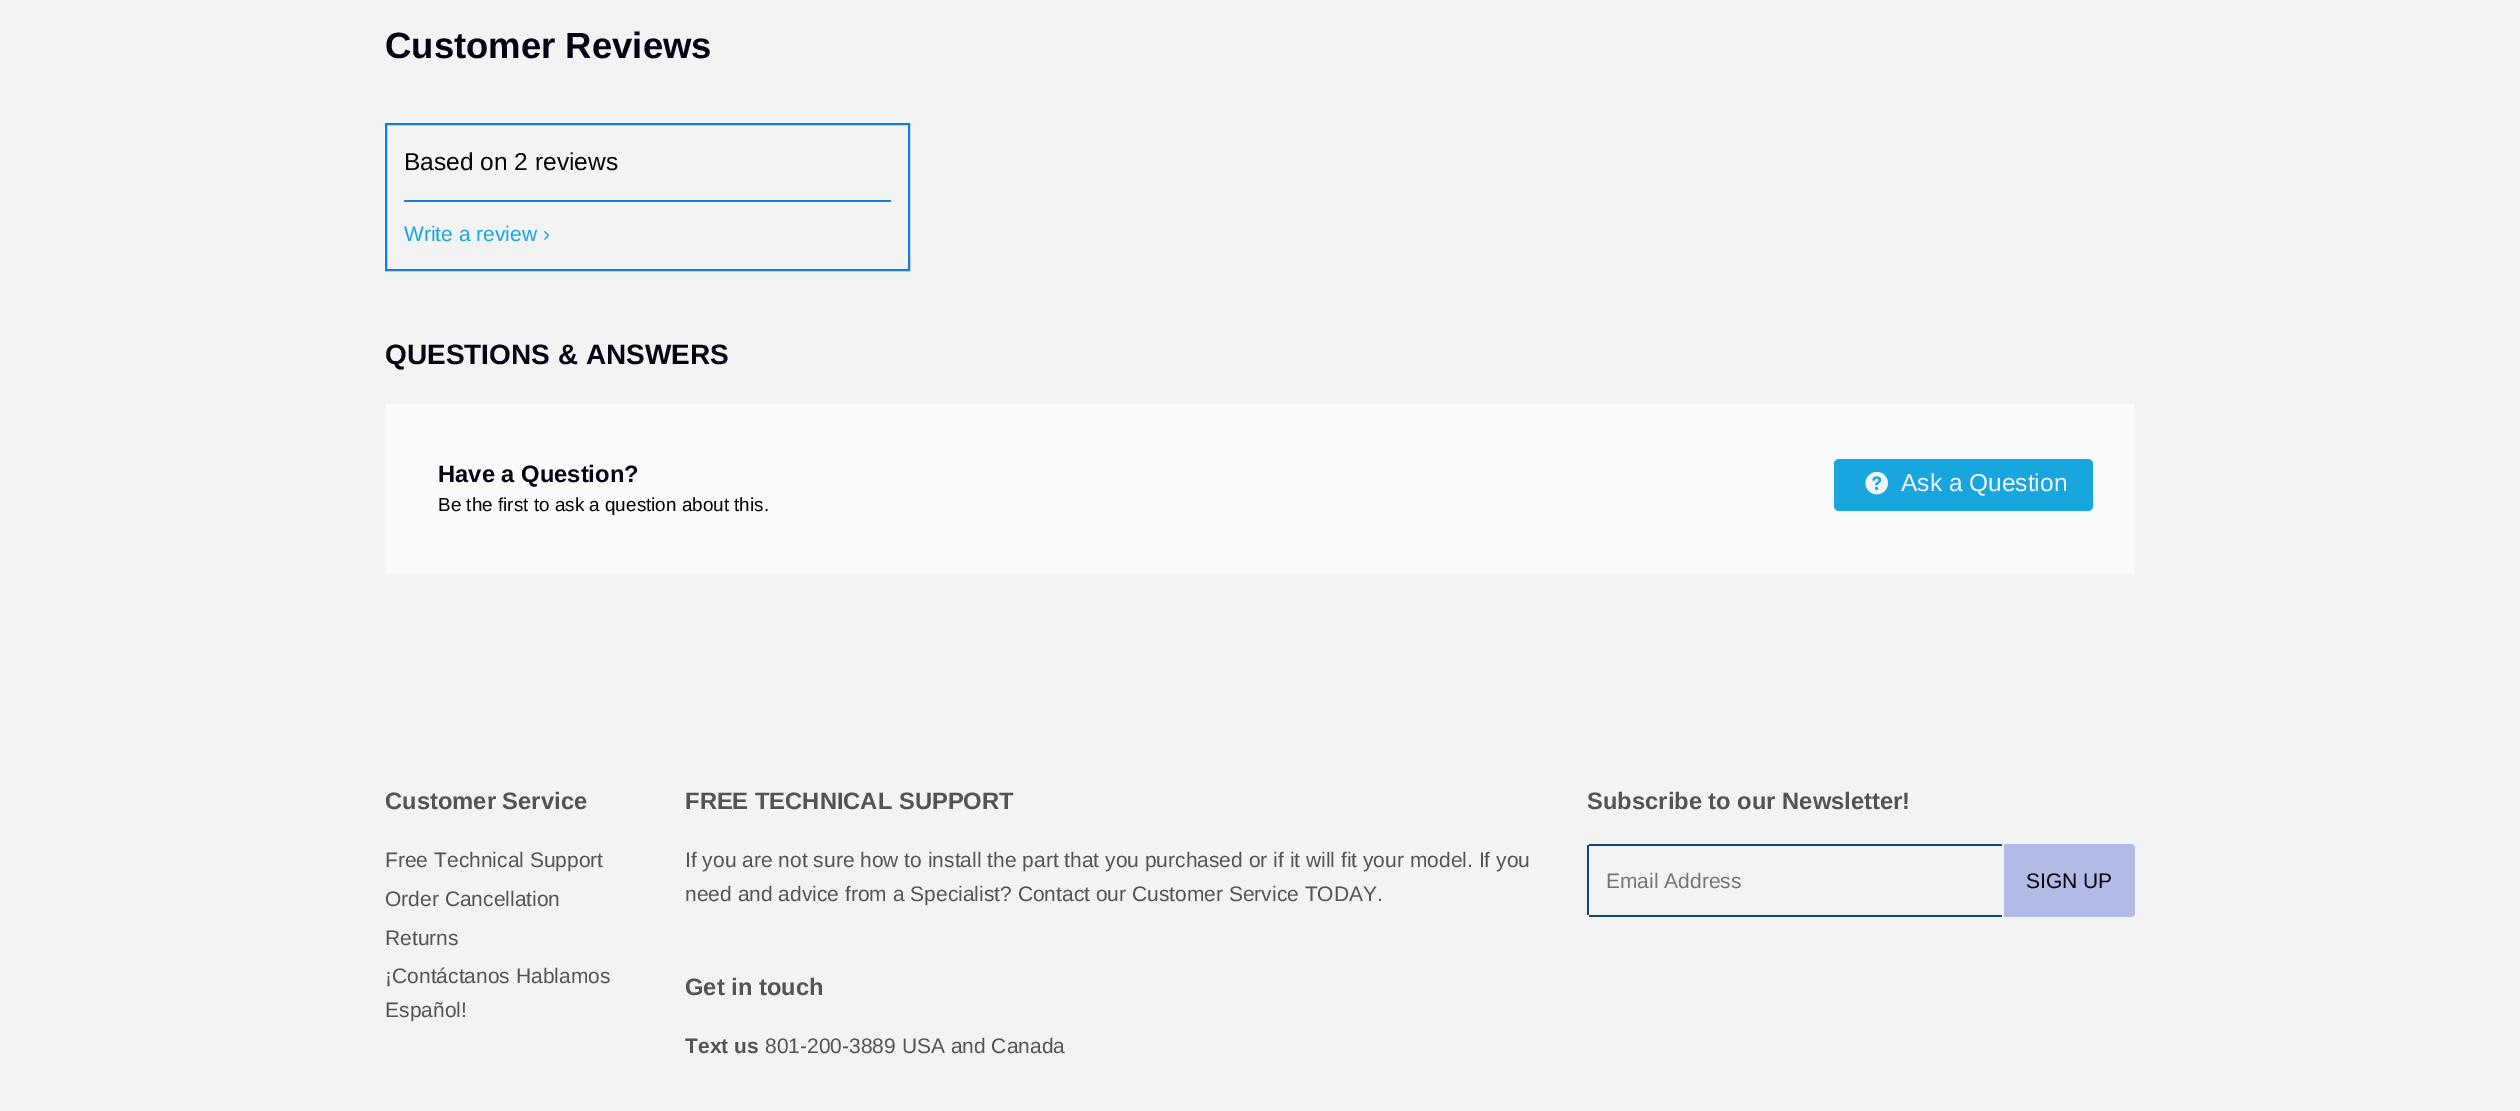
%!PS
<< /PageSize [2520 1111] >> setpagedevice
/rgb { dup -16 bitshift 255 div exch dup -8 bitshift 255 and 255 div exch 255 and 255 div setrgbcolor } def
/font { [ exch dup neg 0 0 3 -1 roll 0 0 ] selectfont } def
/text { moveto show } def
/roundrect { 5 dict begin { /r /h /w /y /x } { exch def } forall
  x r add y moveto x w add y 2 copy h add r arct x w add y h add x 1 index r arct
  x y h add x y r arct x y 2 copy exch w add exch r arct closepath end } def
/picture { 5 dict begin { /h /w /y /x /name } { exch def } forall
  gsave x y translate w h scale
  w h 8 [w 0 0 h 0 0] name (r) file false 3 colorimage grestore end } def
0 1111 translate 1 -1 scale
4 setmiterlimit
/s1 { /LiberationSans-Bold 36.5 font 16#010514 rgb } def
/s2 { /LiberationSans-Regular 24.5 font 16#040408 rgb } def
/s3 { /LiberationSans-Regular 21 font 16#18A6DE rgb } def
/s4 { /LiberationSans-Bold 28 font 16#010514 rgb } def
/s5 { /LiberationSans-Bold 23.75 font 16#010514 rgb } def
/s6 { /LiberationSans-Regular 18.9 font 16#040408 rgb } def
/s7 { /LiberationSans-Regular 24.5 font 16#F3F3F3 rgb } def
/s8 { /LiberationSans-Bold 23.75 font 16#545454 rgb } def
/s9 { /LiberationSans-Regular 21 font 16#545454 rgb } def
/s10 { /LiberationSans-Regular 21 font 16#757575 rgb } def
/s11 { /LiberationSans-Regular 21 font 16#040408 rgb } def
/s12 { /LiberationSans-Bold 21 font 16#545454 rgb } def
16#F3F3F3 rgb
0 0 2520 1111 rectfill
s1
(Customer Reviews) 385 58 text
16#157CDC rgb
2 setlinewidth
386 124 523 146 rectstroke
404 200 487 2 rectfill
s2
(Based on 2 reviews) 404 170 text
s3
(Write a review ›) 404 241 text
s4
(QUESTIONS & ANSWERS) 385 364 text
16#FAFAFA rgb
385 404 1750 170 rectfill
s5
(Have a Question?) 438 482 text
s6
(Be the first to ask a question about this.) 438 511 text
16#18A6DE rgb
1834 459 259 52 5 roundrect fill
(pic1.raw) 1865 471 23 24 picture
s7
(Ask a Question) 1901 491 text
s8
(Customer Service) 385 809 text
s9
(Free Technical Support) 385 867 text
(Order Cancellation) 385 906 text
(Returns) 385 945 text
(¡Contáctanos Hablamos) 385 983 text
(Español!) 385 1017 text
s8
(FREE TECHNICAL SUPPORT) 685 809 text
s9
(If you are not sure how to install the part that you purchased or if it will fit your model. If you) 685 867 text
(need and advice from a Specialist? Contact our Customer Service TODAY.) 685 901 text
s8
(Subscribe to our Newsletter!) 1587 809 text
16#0C487F rgb
1589 844 413 2 rectfill
1589 915 413 2 rectfill
1587 845 2 70 rectfill
s10
(Email Address) 1606 888 text
16#B2BAE6 rgb
2004 844 moveto 2131 844 lineto 2133 844 2135 846 2135 848 curveto 2135 913 lineto 2135 915 2133 917 2131 917 curveto 2004 917 lineto closepath fill
s11
(SIGN UP) 2026 888 text
s8
(Get in touch) 685 995 text
s12
(Text us) 685 1053 text
s9
(801-200-3889 USA and Canada) 765 1053 text
showpage
